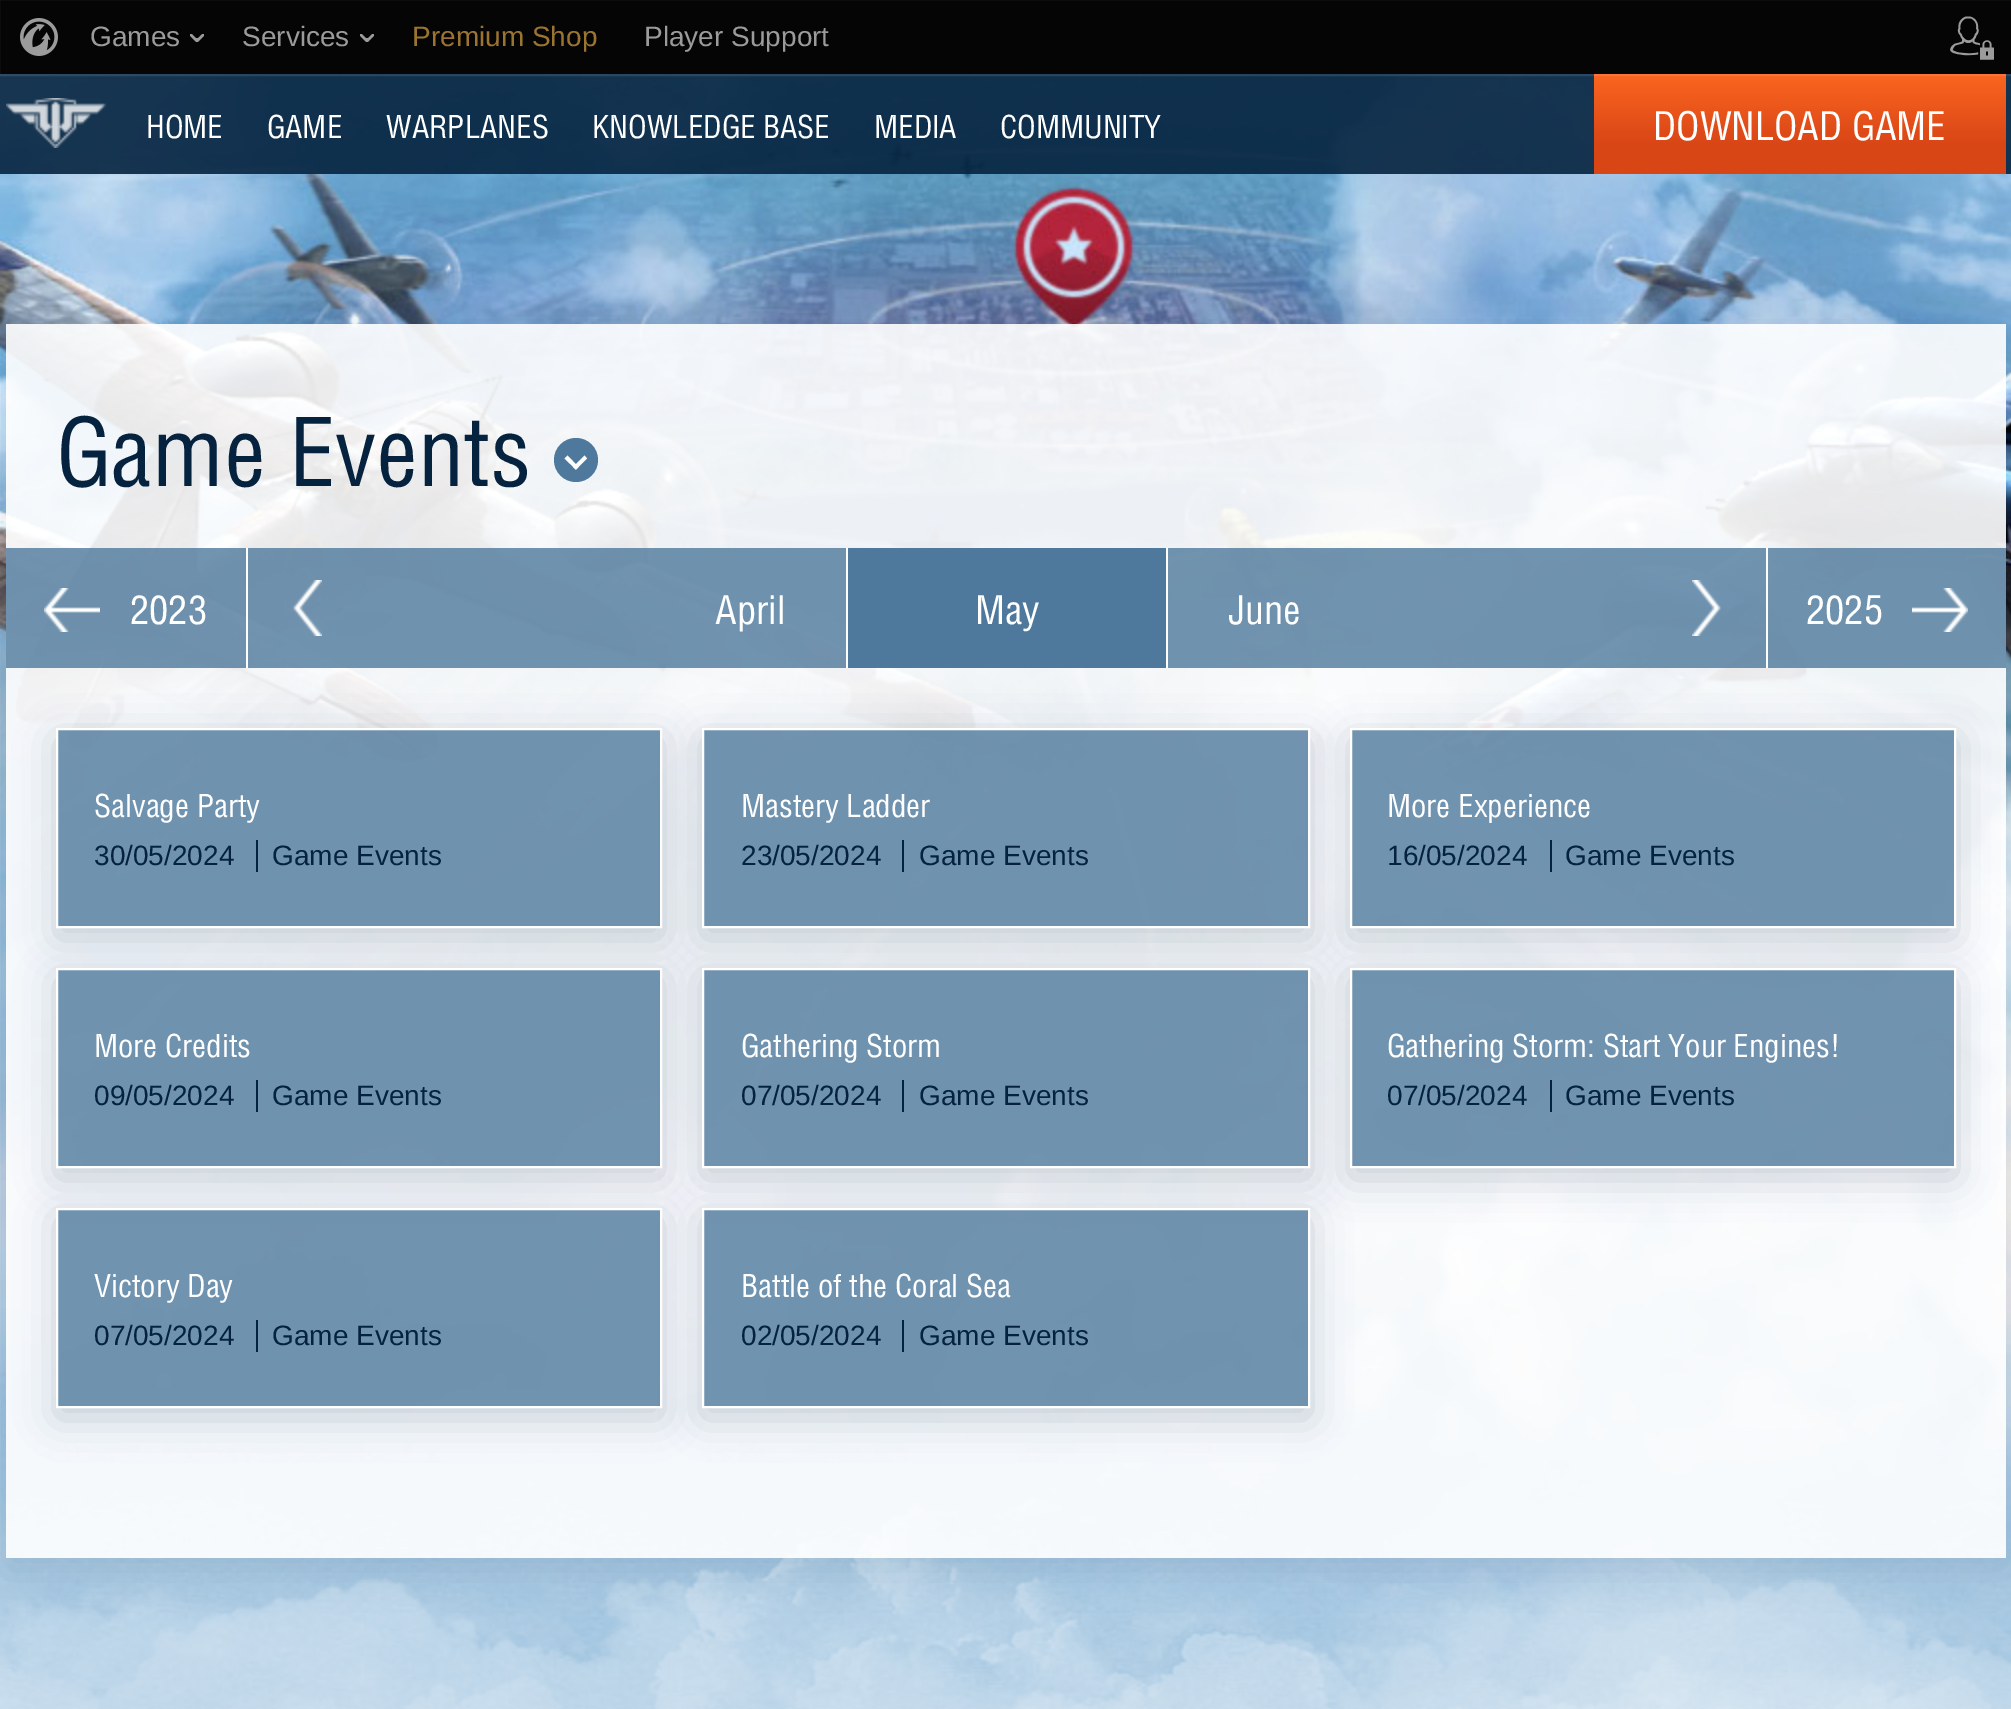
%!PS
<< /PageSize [2011 1709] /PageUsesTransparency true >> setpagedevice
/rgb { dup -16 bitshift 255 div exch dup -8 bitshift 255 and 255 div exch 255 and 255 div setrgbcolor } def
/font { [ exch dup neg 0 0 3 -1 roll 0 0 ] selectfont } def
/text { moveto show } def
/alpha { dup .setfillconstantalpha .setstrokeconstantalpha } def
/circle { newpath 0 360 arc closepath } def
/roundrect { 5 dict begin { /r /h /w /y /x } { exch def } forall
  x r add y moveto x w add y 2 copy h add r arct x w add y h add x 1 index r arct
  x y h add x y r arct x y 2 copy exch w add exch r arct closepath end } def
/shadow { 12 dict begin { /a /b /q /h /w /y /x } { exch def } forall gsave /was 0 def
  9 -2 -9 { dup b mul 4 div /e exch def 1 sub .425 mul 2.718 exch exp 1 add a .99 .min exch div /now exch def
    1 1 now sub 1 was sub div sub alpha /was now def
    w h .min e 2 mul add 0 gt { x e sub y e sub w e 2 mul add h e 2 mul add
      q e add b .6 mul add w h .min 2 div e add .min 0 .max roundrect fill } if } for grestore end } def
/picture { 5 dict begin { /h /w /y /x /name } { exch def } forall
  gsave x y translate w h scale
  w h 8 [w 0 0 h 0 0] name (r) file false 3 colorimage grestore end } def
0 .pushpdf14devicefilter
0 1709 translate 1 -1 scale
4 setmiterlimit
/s1 { /LiberationSans-Regular 28 font 16#9B9B9B rgb } def
/s2 { /LiberationSans-Regular 28 font 16#9B7430 rgb } def
/s3 { /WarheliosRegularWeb-Regular 32 font 16#FFFFFF rgb } def
/s4 { /WarheliosRegularWeb-Regular 40 font 16#FFFFFF rgb } def
/s5 { /WarheliosRegularWeb-Regular 96 font 16#05233F rgb } def
/s6 { /LiberationSans-Regular 28 font 16#05233F rgb } def
16#FFFFFF rgb
0 0 2011 1709 rectfill
(pic1.raw) 0 1705 2011 4 picture
16#050505 rgb
0 0 2011 74 rectfill
(pic6.raw) 0 74 2011 1631 picture
0.9 alpha
16#05233F rgb
0 74 2011 100 rectfill
1 alpha
gsave 1594 74 moveto 2006 74 lineto 2006 174 lineto 1594 174 lineto closepath clip newpath
<< /ShadingType 2 /ColorSpace /DeviceRGB /Coords [1800 74 1800 174] /Extend [true true] /Function << /FunctionType 3 /Domain [0 1] /Functions [<< /FunctionType 2 /Domain [0 1] /C0 [0.988 0.396 0.125] /C1 [0.851 0.275 0.086] /N 1 >> << /FunctionType 2 /Domain [0 1] /C0 [0.851 0.275 0.086] /C1 [0.851 0.275 0.086] /N 1 >>] /Bounds [0.7] /Encode [0 1 0 1] >> >> shfill grestore
0.1 alpha
16#FFFFFF rgb
2 setlinewidth
-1 -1 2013 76 rectstroke
1 alpha
(pic2.raw) 20 18 38 38 picture
s1
(Games) 90 46 text
(pic3.raw) 190 34 14 8 picture
(Services) 242 46 text
(pic3.raw) 360 34 14 8 picture
s2
(Premium Shop) 412 46 text
s1
(Player Support) 644 46 text
(pic4.raw) 1950 16 44 44 picture
(pic5.raw) 6 98 100 50 picture
s3
(HOME) 146 138 text
(GAME) 267 138 text
(WARPLANES) 386 138 text
(KNOWLEDGE BASE) 592 138 text
(MEDIA) 874 138 text
(COMMUNITY) 1000 138 text
s4
(DOWNLOAD GAME) 1653 140 text
(pic7.raw) 0 1181 2011 528 picture
gsave
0 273 moveto 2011 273 lineto 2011 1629 lineto 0 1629 lineto closepath 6 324 moveto 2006 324 lineto 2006 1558 lineto 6 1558 lineto closepath eoclip newpath
16#05233F rgb
6 334 2000 1234 0 20 0.1 shadow
grestore
0.9 alpha
6 324 2000 1234 rectfill
1 alpha
s5
(Game Events) 56 486 text
16#4E799C rgb
576 460 22 circle fill
16#FFFFFF rgb
584.5 455.5 moveto 587 458.5 lineto 576 469.5 lineto 573 467 lineto closepath fill
567.5 455.5 moveto 578.5 467 lineto 576 469.5 lineto 564.5 458.5 lineto closepath fill
0.8 alpha
16#4E799C rgb
6 548 240 120 rectfill
1 alpha
(pic8.raw) 44 588 56 44 picture
s4
(2023) 130 624 text
0.8 alpha
16#4E799C rgb
248 548 598 120 rectfill
1 alpha
16#FFFFFF rgb
246 548 2 120 rectfill
(pic9.raw) 293 580 29 56 picture
(April) 715 624 text
16#4E799C rgb
848 548 318 120 rectfill
16#FFFFFF rgb
846 548 2 120 rectfill
(May) 975 624 text
0.8 alpha
16#4E799C rgb
1168 548 598 120 rectfill
1 alpha
16#FFFFFF rgb
1166 548 2 120 rectfill
(pic10.raw) 1692 580 29 56 picture
(June) 1228 624 text
0.8 alpha
16#4E799C rgb
1768 548 238 120 rectfill
1 alpha
16#FFFFFF rgb
1766 548 2 120 rectfill
(2025) 1806 624 text
(pic11.raw) 1912 588 56 44 picture
gsave
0 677 moveto 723 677 lineto 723 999 lineto 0 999 lineto closepath 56 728 moveto 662 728 lineto 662 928 lineto 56 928 lineto closepath eoclip newpath
16#05233F rgb
56 738 606 200 0 20 0.2 shadow
grestore
0.8 alpha
16#4E799C rgb
57 729 moveto 661 729 lineto 661 927 lineto 57 927 lineto closepath fill
1 alpha
16#FFFFFF rgb
57 729 moveto 661 729 lineto 661 927 lineto 57 927 lineto closepath stroke
s3
(Salvage Party) 94 817 text
s6
(30/05/2024) 94 865 text
(Game Events) 272 865 text
256 840 2 32 rectfill
gsave
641 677 moveto 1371 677 lineto 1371 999 lineto 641 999 lineto closepath 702 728 moveto 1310 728 lineto 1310 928 lineto 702 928 lineto closepath eoclip newpath
702 738 608 200 0 20 0.2 shadow
grestore
0.8 alpha
16#4E799C rgb
703 729 moveto 1309 729 lineto 1309 927 lineto 703 927 lineto closepath fill
1 alpha
16#FFFFFF rgb
703 729 moveto 1309 729 lineto 1309 927 lineto 703 927 lineto closepath stroke
s3
(Mastery Ladder) 741 817 text
s6
(23/05/2024) 741 865 text
(Game Events) 919 865 text
902 840 2 32 rectfill
gsave
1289 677 moveto 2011 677 lineto 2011 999 lineto 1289 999 lineto closepath 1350 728 moveto 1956 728 lineto 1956 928 lineto 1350 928 lineto closepath eoclip newpath
1350 738 606 200 0 20 0.2 shadow
grestore
0.8 alpha
16#4E799C rgb
1351 729 moveto 1955 729 lineto 1955 927 lineto 1351 927 lineto closepath fill
1 alpha
16#FFFFFF rgb
1351 729 moveto 1955 729 lineto 1955 927 lineto 1351 927 lineto closepath stroke
s3
(More Experience) 1387 817 text
s6
(16/05/2024) 1387 865 text
(Game Events) 1565 865 text
1550 840 2 32 rectfill
gsave
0 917 moveto 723 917 lineto 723 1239 lineto 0 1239 lineto closepath 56 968 moveto 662 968 lineto 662 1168 lineto 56 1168 lineto closepath eoclip newpath
56 978 606 200 0 20 0.2 shadow
grestore
0.8 alpha
16#4E799C rgb
57 969 moveto 661 969 lineto 661 1167 lineto 57 1167 lineto closepath fill
1 alpha
16#FFFFFF rgb
57 969 moveto 661 969 lineto 661 1167 lineto 57 1167 lineto closepath stroke
s3
(More Credits) 94 1057 text
s6
(09/05/2024) 94 1105 text
(Game Events) 272 1105 text
256 1080 2 32 rectfill
gsave
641 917 moveto 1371 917 lineto 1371 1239 lineto 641 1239 lineto closepath 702 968 moveto 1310 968 lineto 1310 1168 lineto 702 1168 lineto closepath eoclip newpath
702 978 608 200 0 20 0.2 shadow
grestore
0.8 alpha
16#4E799C rgb
703 969 moveto 1309 969 lineto 1309 1167 lineto 703 1167 lineto closepath fill
1 alpha
16#FFFFFF rgb
703 969 moveto 1309 969 lineto 1309 1167 lineto 703 1167 lineto closepath stroke
s3
(Gathering Storm) 741 1057 text
s6
(07/05/2024) 741 1105 text
(Game Events) 919 1105 text
902 1080 2 32 rectfill
gsave
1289 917 moveto 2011 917 lineto 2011 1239 lineto 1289 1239 lineto closepath 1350 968 moveto 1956 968 lineto 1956 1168 lineto 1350 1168 lineto closepath eoclip newpath
1350 978 606 200 0 20 0.2 shadow
grestore
0.8 alpha
16#4E799C rgb
1351 969 moveto 1955 969 lineto 1955 1167 lineto 1351 1167 lineto closepath fill
1 alpha
16#FFFFFF rgb
1351 969 moveto 1955 969 lineto 1955 1167 lineto 1351 1167 lineto closepath stroke
s3
(Gathering Storm: Start Your Engines!) 1387 1057 text
s6
(07/05/2024) 1387 1105 text
(Game Events) 1565 1105 text
1550 1080 2 32 rectfill
gsave
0 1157 moveto 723 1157 lineto 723 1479 lineto 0 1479 lineto closepath 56 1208 moveto 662 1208 lineto 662 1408 lineto 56 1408 lineto closepath eoclip newpath
56 1218 606 200 0 20 0.2 shadow
grestore
0.8 alpha
16#4E799C rgb
57 1209 moveto 661 1209 lineto 661 1407 lineto 57 1407 lineto closepath fill
1 alpha
16#FFFFFF rgb
57 1209 moveto 661 1209 lineto 661 1407 lineto 57 1407 lineto closepath stroke
s3
(Victory Day) 94 1297 text
s6
(07/05/2024) 94 1345 text
(Game Events) 272 1345 text
256 1320 2 32 rectfill
gsave
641 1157 moveto 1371 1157 lineto 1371 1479 lineto 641 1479 lineto closepath 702 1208 moveto 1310 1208 lineto 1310 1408 lineto 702 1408 lineto closepath eoclip newpath
702 1218 608 200 0 20 0.2 shadow
grestore
0.8 alpha
16#4E799C rgb
703 1209 moveto 1309 1209 lineto 1309 1407 lineto 703 1407 lineto closepath fill
1 alpha
16#FFFFFF rgb
703 1209 moveto 1309 1209 lineto 1309 1407 lineto 703 1407 lineto closepath stroke
s3
(Battle of the Coral Sea) 741 1297 text
s6
(02/05/2024) 741 1345 text
(Game Events) 919 1345 text
902 1320 2 32 rectfill
.poppdf14devicefilter showpage
